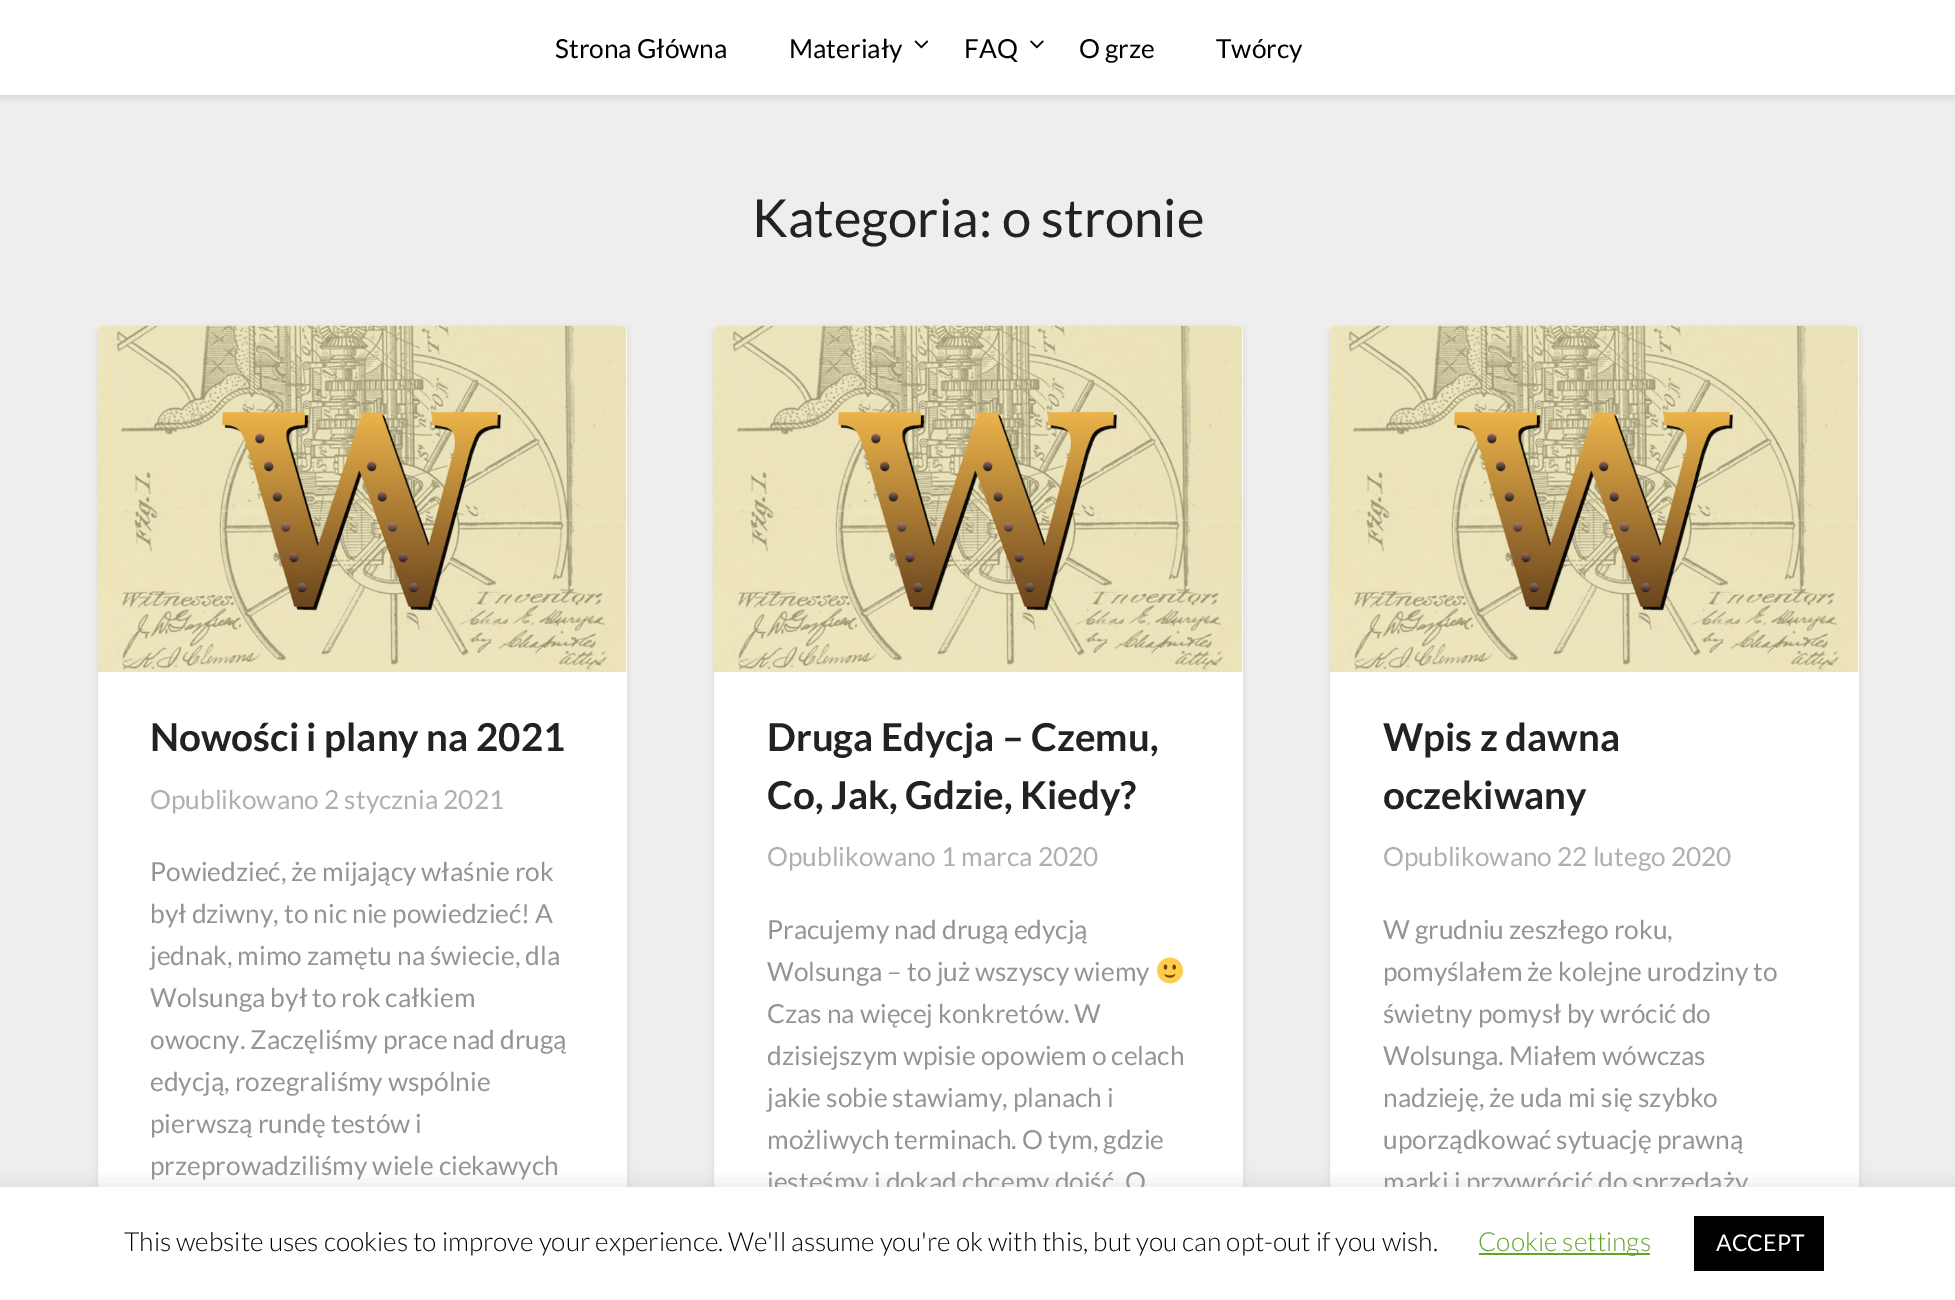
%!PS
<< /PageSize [1955 1300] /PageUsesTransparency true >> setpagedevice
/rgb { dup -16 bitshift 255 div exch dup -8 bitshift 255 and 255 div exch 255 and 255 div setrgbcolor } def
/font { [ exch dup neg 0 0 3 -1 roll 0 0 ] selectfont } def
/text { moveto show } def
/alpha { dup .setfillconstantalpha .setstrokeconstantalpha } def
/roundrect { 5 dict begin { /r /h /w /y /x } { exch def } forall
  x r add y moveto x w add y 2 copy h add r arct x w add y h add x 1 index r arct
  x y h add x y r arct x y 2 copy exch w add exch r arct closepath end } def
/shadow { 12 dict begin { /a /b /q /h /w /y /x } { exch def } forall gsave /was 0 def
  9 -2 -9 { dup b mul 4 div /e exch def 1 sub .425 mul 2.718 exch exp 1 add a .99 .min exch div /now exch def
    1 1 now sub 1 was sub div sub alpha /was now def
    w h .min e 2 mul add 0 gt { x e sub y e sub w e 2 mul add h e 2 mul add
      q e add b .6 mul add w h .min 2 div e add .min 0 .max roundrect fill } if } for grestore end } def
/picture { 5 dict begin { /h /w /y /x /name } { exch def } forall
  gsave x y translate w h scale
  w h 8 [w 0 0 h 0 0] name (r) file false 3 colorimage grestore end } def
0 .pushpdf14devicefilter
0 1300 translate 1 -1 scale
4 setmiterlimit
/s1 { /Lato-Regular 26.25 font 16#000000 rgb } def
/s2 { /Lato-Regular 52.5 font 16#222222 rgb } def
/s3 { /Lato-Bold 38.5 font 16#222222 rgb } def
/s4 { /Lato-Regular 26.25 font 16#AFAFAF rgb } def
/s5 { /Lato-Regular 26.25 font 16#949494 rgb } def
/s6 { /Lato-Light 26.25 font 16#000000 rgb } def
/s7 { /Lato-Light 26.25 font 16#62A329 rgb } def
/s8 { /Lato-Regular 23 font 16#FFFFFF rgb } def
16#EEEEEE rgb
0 0 1955 1300 rectfill
16#000000 rgb
0 4 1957 94 0 3.5 0.1 shadow
16#FFFFFF rgb
0 0 1955 95 rectfill
s1
(Strona Główna) 555 58 text
(Materiały) 789 58 text
(pic1.raw) 914 40 15 9 picture
(FAQ) 964 58 text
(pic2.raw) 1030 40 14 9 picture
(O grze) 1079 58 text
(Twórcy) 1216 58 text
s2
(Kategoria: o stronie) 752 237 text
16#000000 rgb
98 329 529 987 5 3.5 0.1 shadow
16#FFFFFF rgb
98 326 529 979 5 roundrect fill
(pic3.raw) 98 325 529 347 picture
s3
(Nowości i plany na 2021) 150 751 text
s4
(Opublikowano 2 stycznia 2021) 150 809 text
s5
(Powiedzieć, że mijający właśnie rok) 150 881 text
(był dziwny, to nic nie powiedzieć! A) 150 923 text
(jednak, mimo zamętu na świecie, dla) 150 965 text
(Wolsunga był to rok całkiem) 150 1007 text
(owocny. Zaczęliśmy prace nad drugą) 150 1049 text
(edycją, rozegraliśmy wspólnie) 150 1091 text
(pierwszą rundę testów i) 150 1133 text
(przeprowadziliśmy wiele ciekawych) 150 1175 text
16#000000 rgb
714 329 529 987 5 3.5 0.1 shadow
16#FFFFFF rgb
714 326 529 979 5 roundrect fill
(pic3.raw) 714 325 529 347 picture
s3
(Druga Edycja – Czemu,) 767 751 text
(Co, Jak, Gdzie, Kiedy?) 767 809 text
s4
(Opublikowano 1 marca 2020) 767 866 text
s5
(Pracujemy nad drugą edycją) 767 939 text
(Wolsunga – to już wszyscy wiemy) 767 981 text
(pic4.raw) 1157 957 26 27 picture
(Czas na więcej konkretów. W) 767 1023 text
(dzisiejszym wpisie opowiem o celach) 767 1065 text
(jakie sobie stawiamy, planach i) 767 1107 text
(możliwych terminach. O tym, gdzie) 767 1149 text
(jesteśmy i dokąd chcemy dojść. O) 767 1191 text
16#000000 rgb
1330 329 529 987 5 3.5 0.1 shadow
16#FFFFFF rgb
1330 326 529 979 5 roundrect fill
(pic3.raw) 1330 325 529 347 picture
s3
(Wpis z dawna) 1383 751 text
(oczekiwany) 1383 809 text
s4
(Opublikowano 22 lutego 2020) 1383 866 text
s5
(W grudniu zeszłego roku,) 1383 939 text
(pomyślałem że kolejne urodziny to) 1383 981 text
(świetny pomysł by wrócić do) 1383 1023 text
(Wolsunga. Miałem wówczas) 1383 1065 text
(nadzieję, że uda mi się szybko) 1383 1107 text
(uporządkować sytuację prawną) 1383 1149 text
(marki i przywrócić do sprzedaży) 1383 1191 text
16#ACABAB rgb
0 1185 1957 114 0 9 0.3 shadow
16#FFFFFF rgb
0 1187 1955 113 rectfill
s6
(This website uses cookies to improve your experience. We'll assume you're ok with this, but you can opt-out if you wish.) 124 1251 text
16#62A329 rgb
1479 1253 171 2 rectfill
(Cookie settings) 1478 1251 text
16#000000 rgb
1694 1216 130 55 rectfill
s8
(ACCEPT) 1716 1251 text
.poppdf14devicefilter showpage
